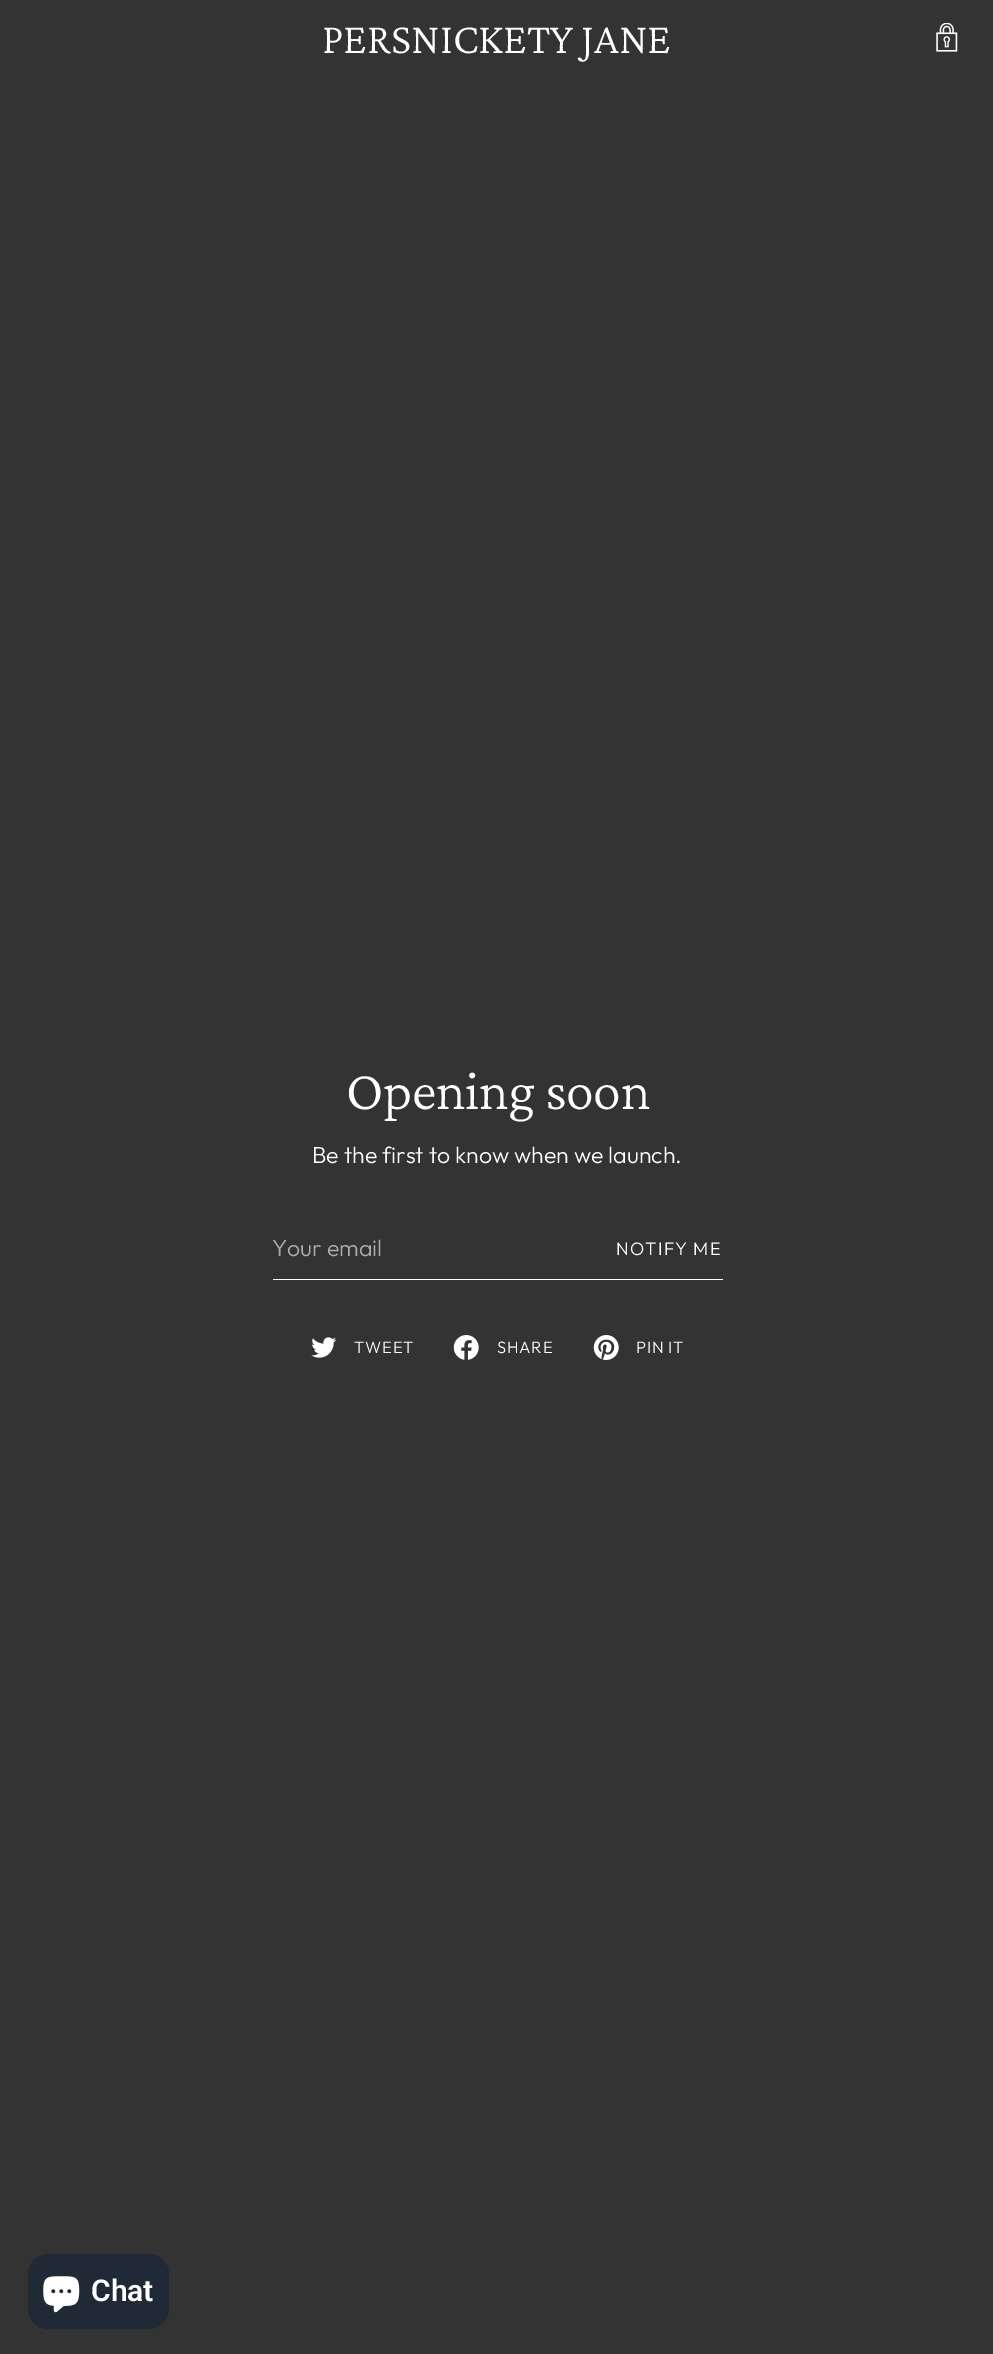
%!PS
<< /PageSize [993 2354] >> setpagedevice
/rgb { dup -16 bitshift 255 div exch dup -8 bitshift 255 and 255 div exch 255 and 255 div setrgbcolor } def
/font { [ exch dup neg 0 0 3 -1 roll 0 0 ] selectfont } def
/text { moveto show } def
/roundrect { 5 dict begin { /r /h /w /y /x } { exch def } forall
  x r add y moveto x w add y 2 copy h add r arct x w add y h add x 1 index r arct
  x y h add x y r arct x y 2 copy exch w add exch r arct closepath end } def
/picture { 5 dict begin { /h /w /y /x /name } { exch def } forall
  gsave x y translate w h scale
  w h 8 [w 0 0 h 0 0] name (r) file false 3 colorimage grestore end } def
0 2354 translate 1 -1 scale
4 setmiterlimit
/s1 { /CrimsonPro-Light 44 font 16#FFFFFF rgb } def
/s2 { /Outfit-Light 23.1 font 16#FFFFFF rgb } def
/s3 { /Outfit-Light 23.1 font 16#ADADAD rgb } def
/s4 { /Roboto-SemiBold 30 font 16#FFFFFF rgb } def
16#333333 rgb
0 0 993 2354 rectfill
s1
(PERSNICKETY JANE) 322 53 text
(pic1.raw) 936 23 22 29 picture
/CrimsonPro-Light 56.5 font
346 1109 moveto -0.5 0 (Opening soon) ashow
s2
(Be the first to know when we launch.) 312 1163 text
273 1279 450 1 rectfill
s3
(Your email) 272 1256 text
/Outfit-Light 18 font
16#FFFFFF rgb
616 1255 moveto 1.25 0 (NOTIFY ME) ashow
(pic2.raw) 311 1337 26 21 picture
/Outfit-Light 16.5 font
354 1353 moveto 0.75 0 (TWEET) ashow
(pic3.raw) 453 1335 26 25 picture
497 1353 moveto 0.75 0 (SHARE) ashow
(pic4.raw) 593 1335 26 25 picture
636 1353 moveto 0.75 0 (PIN IT) ashow
16#202A36 rgb
28 2254 141 75 20 roundrect fill
(pic5.raw) 43 2276 37 37 picture
s4
(Chat) 91 2301 text
showpage
